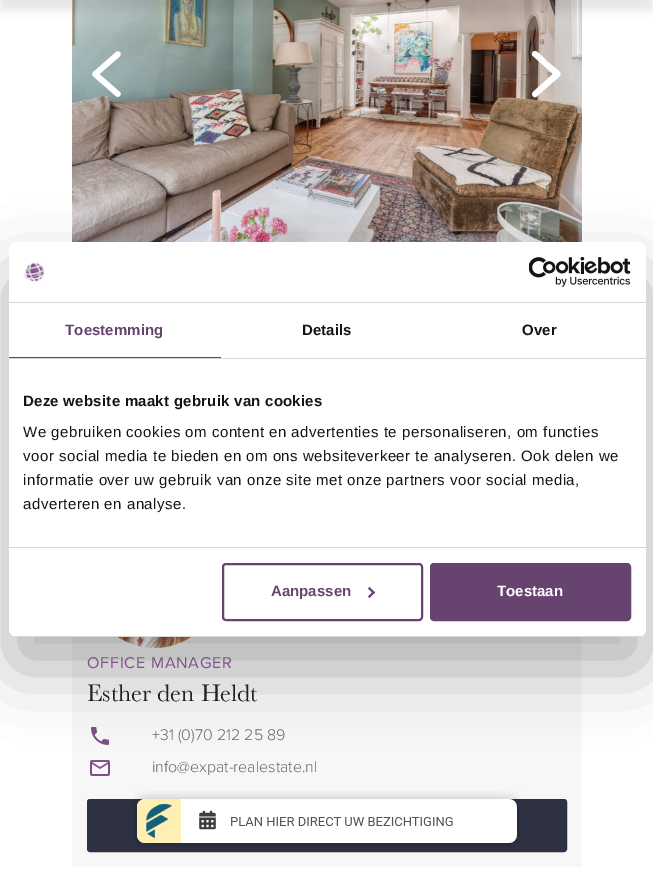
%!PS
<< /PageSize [653 878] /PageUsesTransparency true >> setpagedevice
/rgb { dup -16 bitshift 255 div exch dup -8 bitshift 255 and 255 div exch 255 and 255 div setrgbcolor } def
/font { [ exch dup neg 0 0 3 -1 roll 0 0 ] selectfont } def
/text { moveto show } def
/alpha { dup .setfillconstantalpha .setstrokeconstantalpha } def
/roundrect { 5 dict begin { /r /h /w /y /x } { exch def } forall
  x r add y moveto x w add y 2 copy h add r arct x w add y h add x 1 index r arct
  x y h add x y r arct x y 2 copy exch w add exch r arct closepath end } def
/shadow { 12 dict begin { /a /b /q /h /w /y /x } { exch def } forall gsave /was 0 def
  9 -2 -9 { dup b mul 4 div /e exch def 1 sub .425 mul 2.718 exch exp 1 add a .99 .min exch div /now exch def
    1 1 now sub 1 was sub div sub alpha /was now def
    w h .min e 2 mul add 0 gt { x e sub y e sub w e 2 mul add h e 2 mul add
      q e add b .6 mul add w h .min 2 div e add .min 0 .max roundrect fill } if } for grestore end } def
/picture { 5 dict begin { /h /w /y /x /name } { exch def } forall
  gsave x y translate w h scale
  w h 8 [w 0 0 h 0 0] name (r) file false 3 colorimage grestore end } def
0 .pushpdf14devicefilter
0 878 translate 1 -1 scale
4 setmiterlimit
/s1 { /LiberationSans-Bold 15 font 16#674370 rgb } def
/s2 { /LiberationSans-Bold 15 font 16#FFFFFF rgb } def
/s3 { /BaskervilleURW-Regular 24.75 font 16#222222 rgb } def
/s4 { /ProximaNova-Light 16 font 16#666666 rgb } def
16#FFFFFF rgb
0 0 653 878 rectfill
(pic3.raw) 72 0 510 242 picture
16#F7F7F7 rgb
72 637 510 230 rectfill
(pic5.raw) 118 637 73 11 picture
(pic6.raw) 91 727 18 18 picture
(pic7.raw) 90 760 20 16 picture
16#000000 rgb
9 274 637 395 8 34 0.3 shadow
16#FFFFFF rgb
9 242 637 395 8 roundrect fill
16#D6D6D6 rgb
9 302 637 1 rectfill
(pic1.raw) 24 262 21 20 picture
(pic2.raw) 529 257 102 30 picture
9 358 637 1 rectfill
16#674370 rgb
9 357 212 1 rectfill
/LiberationSans-Bold 15 font
65 335 moveto 0.1 0 (Toestemming) ashow
16#141414 rgb
302 335 moveto 0.1 0 (Details) ashow
522 335 moveto 0.1 0 (Over) ashow
16#D6D6D6 rgb
9 547 637 1 rectfill
16#141414 rgb
23 406 moveto 0.25 0 (Deze website maakt gebruik van cookies) ashow
/LiberationSans-Regular 15 font
23 437 moveto 0.5 0 (We gebruiken cookies om content en advertenties te personaliseren, om functies) ashow
23 461 moveto 0.5 0 (voor social media te bieden en om ons websiteverkeer te analyseren. Ook delen we) ashow
23 485 moveto 0.5 0 (informatie over uw gebruik van onze site met onze partners voor social media,) ashow
23 509 moveto 0.5 0 (adverteren en analyse.) ashow
gsave
9 242 637 395 8 roundrect clip newpath
16#D6D6D6 rgb
9 636 637 1 rectfill
grestore
16#674370 rgb
2 setlinewidth
223 564 199 56 3 roundrect stroke
s1
(Aanpassen) 271 596 text
369.5 587 moveto 375 592.5 lineto 373.5 594 lineto 368 588.5 lineto closepath fill
373.5 591 moveto 375 592.5 lineto 369.5 598 lineto 368 596.5 lineto closepath fill
431 564 199 56 3 roundrect gsave fill grestore
stroke
s2
(Toestaan) 497 596 text
16#000000 rgb
0 -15 653 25 0 5 0.1 shadow
(pic4.raw) 92 51 29 46 picture
16#FFFFFF rgb
535 51 moveto 532 51 531 55 533 56 curveto 553 74 lineto 533 92 lineto 531 94 533 98 536 97 curveto 552 83 lineto 565 72 563 75 548 62 curveto 541 55 lineto 539 54 537 51 535 51 curveto closepath fill
/ProximaNova-Regular 16.25 font
16#7D5188 rgb
87 668 moveto 0.75 0 (OFFICE MANAGER) ashow
s3
(Esther den Heldt) 87 701 text
s4
(+31 \(0\)70 212 25 89) 152 740 text
(info@expat-realestate.nl) 152 772 text
16#2D3142 rgb
87.5 799.5 479 52 2.5 roundrect gsave fill grestore
1 setlinewidth
stroke
(pic8.raw) 133 791 388 56 picture
.poppdf14devicefilter showpage
